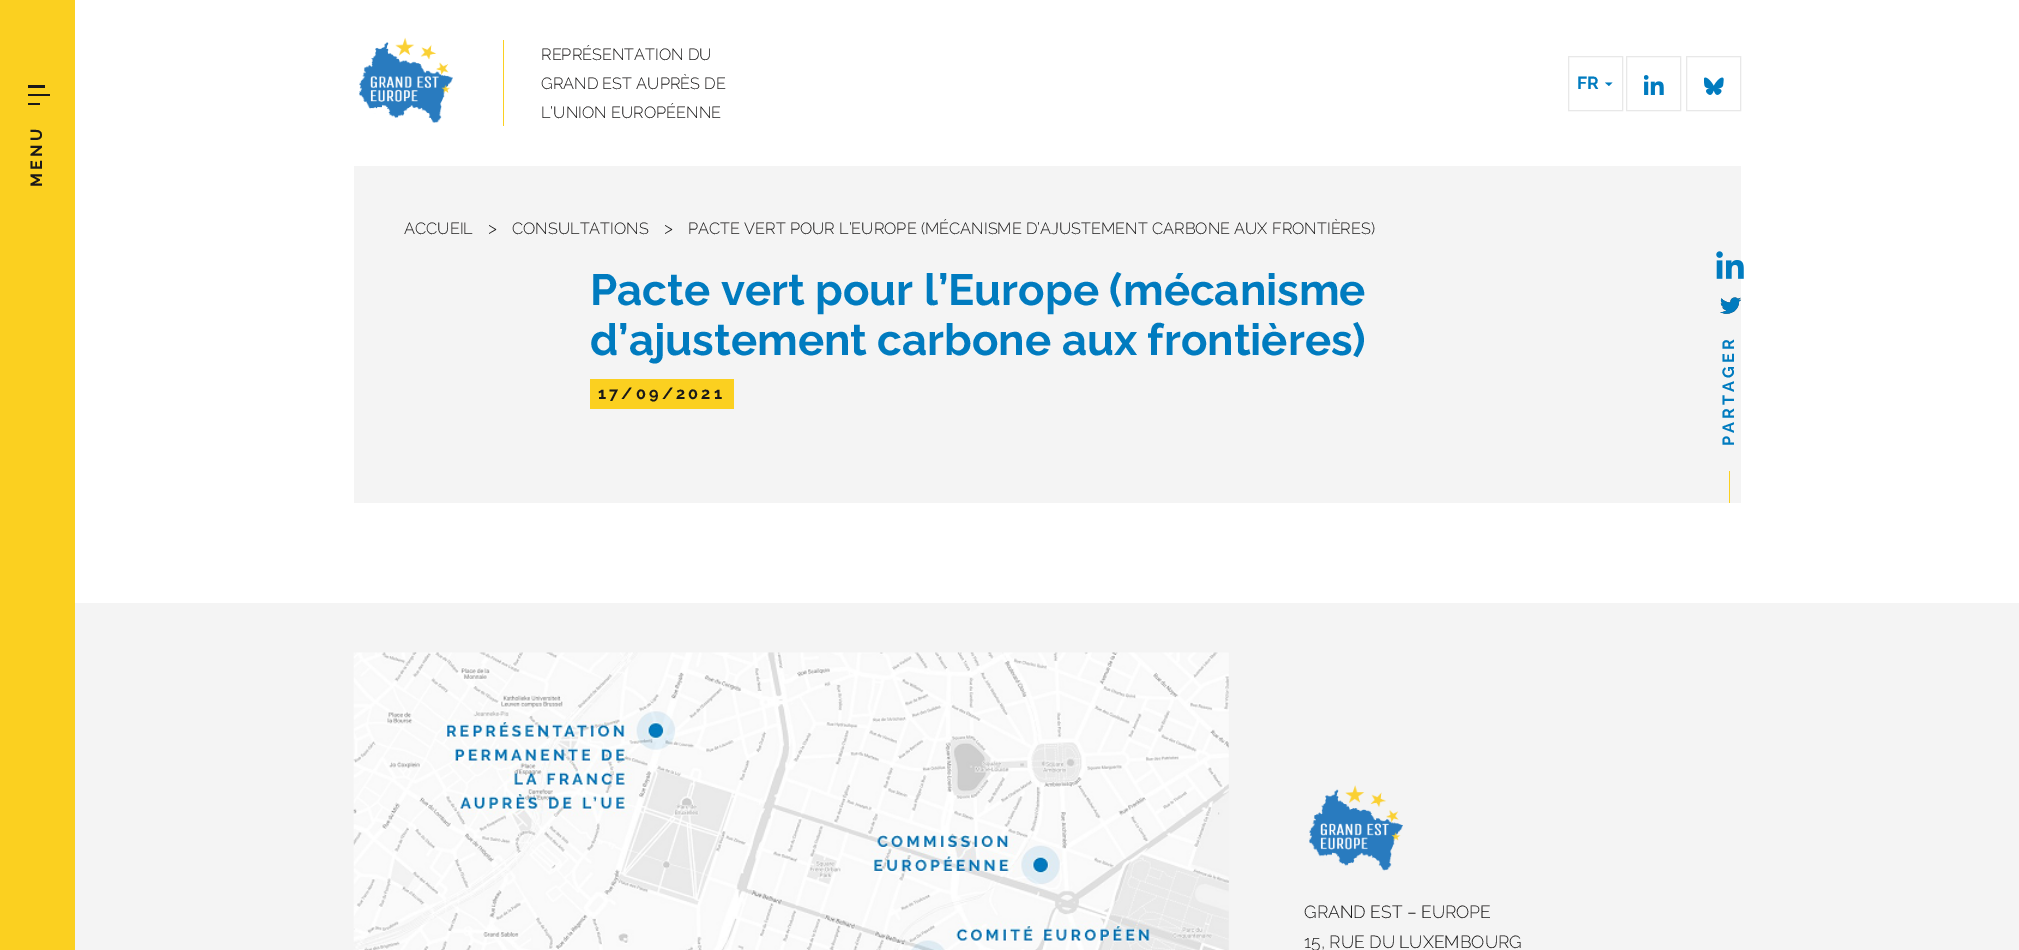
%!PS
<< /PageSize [2019 950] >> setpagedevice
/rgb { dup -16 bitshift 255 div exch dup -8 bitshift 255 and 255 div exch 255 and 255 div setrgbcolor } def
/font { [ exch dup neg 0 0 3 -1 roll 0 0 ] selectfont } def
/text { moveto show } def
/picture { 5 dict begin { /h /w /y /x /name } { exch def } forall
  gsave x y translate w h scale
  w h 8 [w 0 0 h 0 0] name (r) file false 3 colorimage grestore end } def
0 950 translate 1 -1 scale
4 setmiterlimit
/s1 { /Raleway-Light 16.25 font 16#1A1919 rgb } def
/s2 { /Raleway-Bold 17.5 font 16#007BBF rgb } def
/s3 { /Raleway-Light 17.5 font 16#1A1919 rgb } def
/s4 { /Raleway-Bold 43.75 font 16#007BBF rgb } def
16#FFFFFF rgb
0 0 2019 950 rectfill
(pic1.raw) 359 37 94 86 picture
16#FBD020 rgb
503 40 1 86 rectfill
s1
(REPRÉSENTATION DU) 541 60 text
(GRAND EST AUPRÈS DE) 541 89 text
(L’UNION EUROPÉENNE) 541 118 text
16#E8E8E8 rgb
1568.5 56.5 54 54 rectstroke
s2
(FR) 1577 89 text
1605 82.5 moveto 1612.5 82.5 lineto 1609 86 lineto closepath fill
16#E8E8E8 rgb
1626.5 56.5 54 54 rectstroke
(pic2.raw) 1644 75 20 20 picture
1686.5 56.5 54 54 rectstroke
(pic3.raw) 1704 77 20 18 picture
16#FBD020 rgb
0 0 75 950 rectfill
16#1A1919 rgb
28 85 17 3 rectfill
28 94 22 2 rectfill
28 103 12 2 rectfill
/Raleway-Bold 16.25 font
gsave 42 187 translate -90 rotate 0 0 moveto 3.1 0 (MENU) ashow grestore
16#F4F4F4 rgb
354 166 1387 337 rectfill
s1
(ACCUEIL) 404 234 text
s3
(>) 488 234 text
s1
(CONSULTATIONS) 512 234 text
s3
(>) 664 234 text
s1
(PACTE VERT POUR L’EUROPE \(MÉCANISME D’AJUSTEMENT CARBONE AUX FRONTIÈRES\)) 688 234 text
s4
(Pacte vert pour l’Europe \(mécanisme) 590 305 text
(d’ajustement carbone aux frontières\)) 590 355 text
16#FBD020 rgb
590 379 144 30 rectfill
/Raleway-Bold 16.25 font
16#1A1919 rgb
598 399 moveto 3.1 0 (17/09/2021) ashow
(pic4.raw) 1716 251 28 28 picture
(pic5.raw) 1720 297 22 17 picture
16#007BBF rgb
gsave 1734 446 translate -90 rotate 0 0 moveto 3.1 0 (PARTAGER) ashow grestore
16#FBD020 rgb
1729 471 1 32 rectfill
16#F4F4F4 rgb
75 603 1944 347 rectfill
(pic6.raw) 353 652 876 298 picture
(pic7.raw) 1309 785 94 86 picture
s3
(GRAND EST – EUROPE) 1304 918 text
(15, RUE DU LUXEMBOURG) 1304 948 text
showpage
